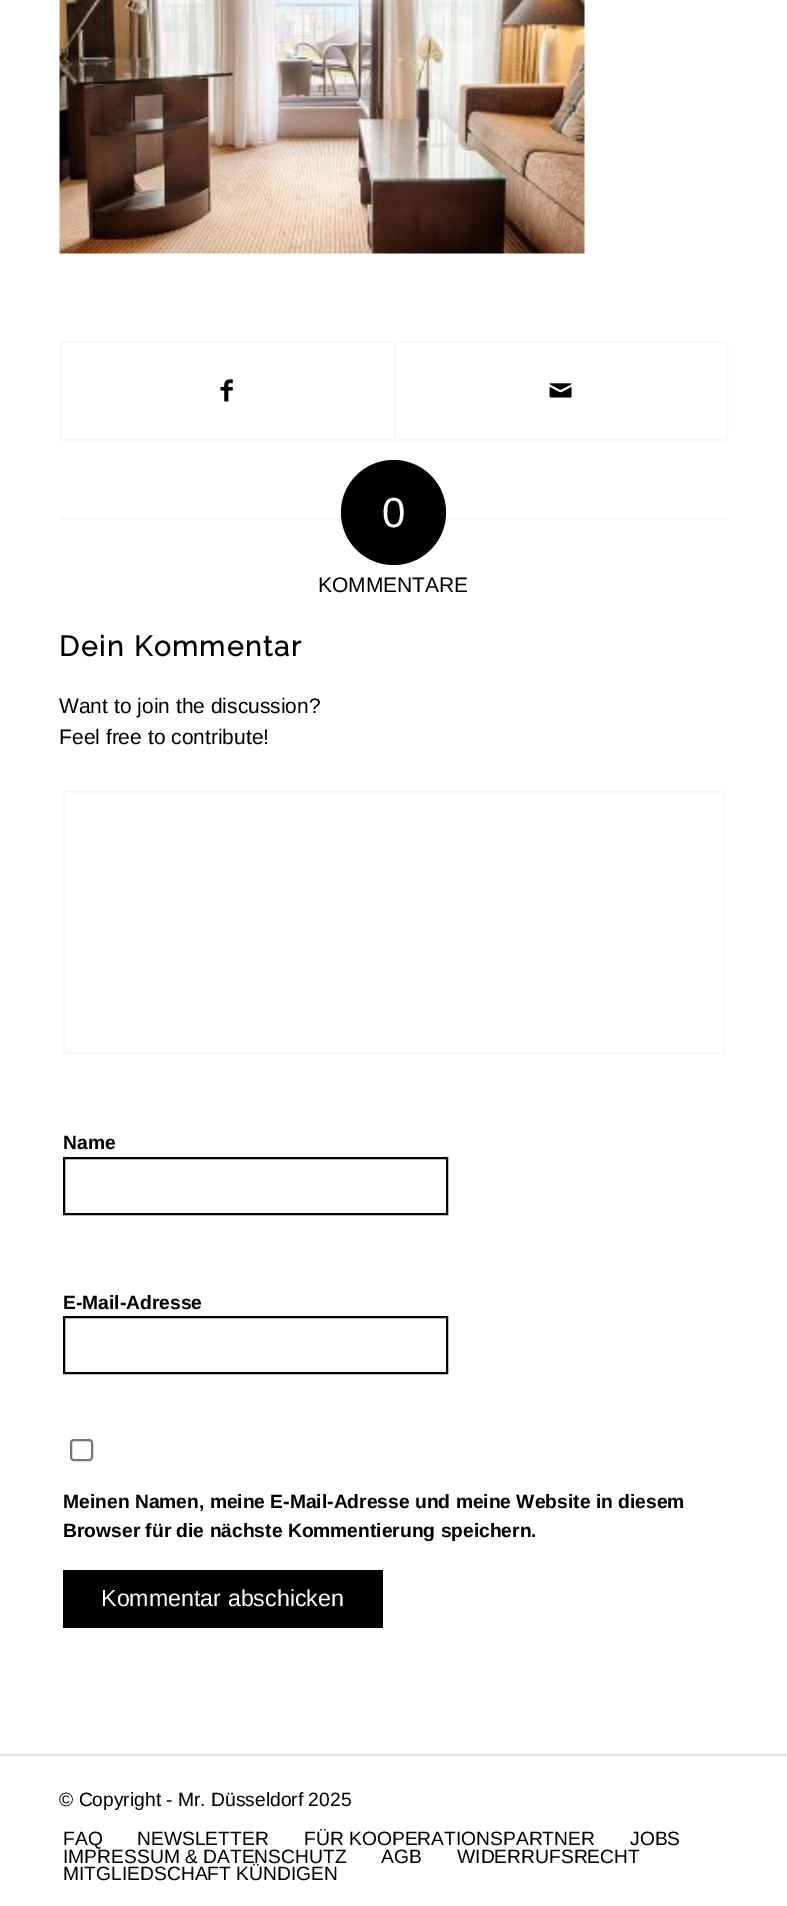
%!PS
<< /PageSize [787 1906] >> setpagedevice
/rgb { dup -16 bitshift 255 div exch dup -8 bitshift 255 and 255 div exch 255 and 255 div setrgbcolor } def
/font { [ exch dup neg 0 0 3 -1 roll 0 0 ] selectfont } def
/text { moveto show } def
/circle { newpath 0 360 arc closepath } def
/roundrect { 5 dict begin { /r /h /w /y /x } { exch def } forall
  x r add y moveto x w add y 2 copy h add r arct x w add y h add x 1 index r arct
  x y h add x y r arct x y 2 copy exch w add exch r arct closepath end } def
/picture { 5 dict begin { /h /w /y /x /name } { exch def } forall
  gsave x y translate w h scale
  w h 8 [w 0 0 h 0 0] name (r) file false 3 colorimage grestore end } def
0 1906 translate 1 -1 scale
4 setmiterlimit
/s1 { /LiberationSans-Regular 42 font 16#FFFFFF rgb } def
/s2 { /LiberationSans-Regular 21 font 16#000000 rgb } def
/s3 { /LiberationSans-Bold 19.25 font 16#000000 rgb } def
/s4 { /LiberationSans-Regular 23.25 font 16#FFFFFF rgb } def
/s5 { /LiberationSans-Regular 19.25 font 16#000000 rgb } def
16#FFFFFF rgb
0 0 787 1906 rectfill
(pic1.raw) 59 0 526 254 picture
16#F8F8F8 rgb
2 setlinewidth
61 342 666 98 4 roundrect stroke
(pic2.raw) 220 379 13 23 picture
394 343 2 96 rectfill
(pic3.raw) 549 383 23 15 picture
60 518 280 2 rectfill
16#000000 rgb
393.5 512.5 52.5 circle fill
s1
(0) 382 527 text
16#F8F8F8 rgb
448 518 280 2 rectfill
s2
(KOMMENTARE) 318 592 text
/Raleway-Bold 28 font
59 656 moveto 1.75 0 (Dein Kommentar) ashow
s2
(Want to join the discussion?) 59 713 text
(Feel free to contribute!) 59 744 text
16#F8F8F8 rgb
64 792 660 261 rectstroke
s3
(Name) 63 1149 text
64 1158 383 56 rectstroke
(E-Mail-Adresse) 63 1309 text
64 1317 383 56 rectstroke
16#767676 rgb
71 1440 21 20 3 roundrect stroke
s3
(Meinen Namen, meine E-Mail-Adresse und meine Website in diesem) 63 1508 text
(Browser für die nächste Kommentierung speichern.) 63 1537 text
63 1570 320 58 rectfill
s4
(Kommentar abschicken) 101 1606 text
16#E1E1E1 rgb
0 1754 787 2 rectfill
s5
(© Copyright - Mr. Düsseldorf 2025) 59 1806 text
(FAQ) 63 1845 text
(NEWSLETTER) 137 1845 text
(FÜR KOOPERATIONSPARTNER) 304 1845 text
(JOBS) 630 1845 text
(IMPRESSUM & DATENSCHUTZ) 63 1863 text
(AGB) 381 1863 text
(WIDERRUFSRECHT) 457 1863 text
(MITGLIEDSCHAFT KÜNDIGEN) 63 1880 text
showpage
